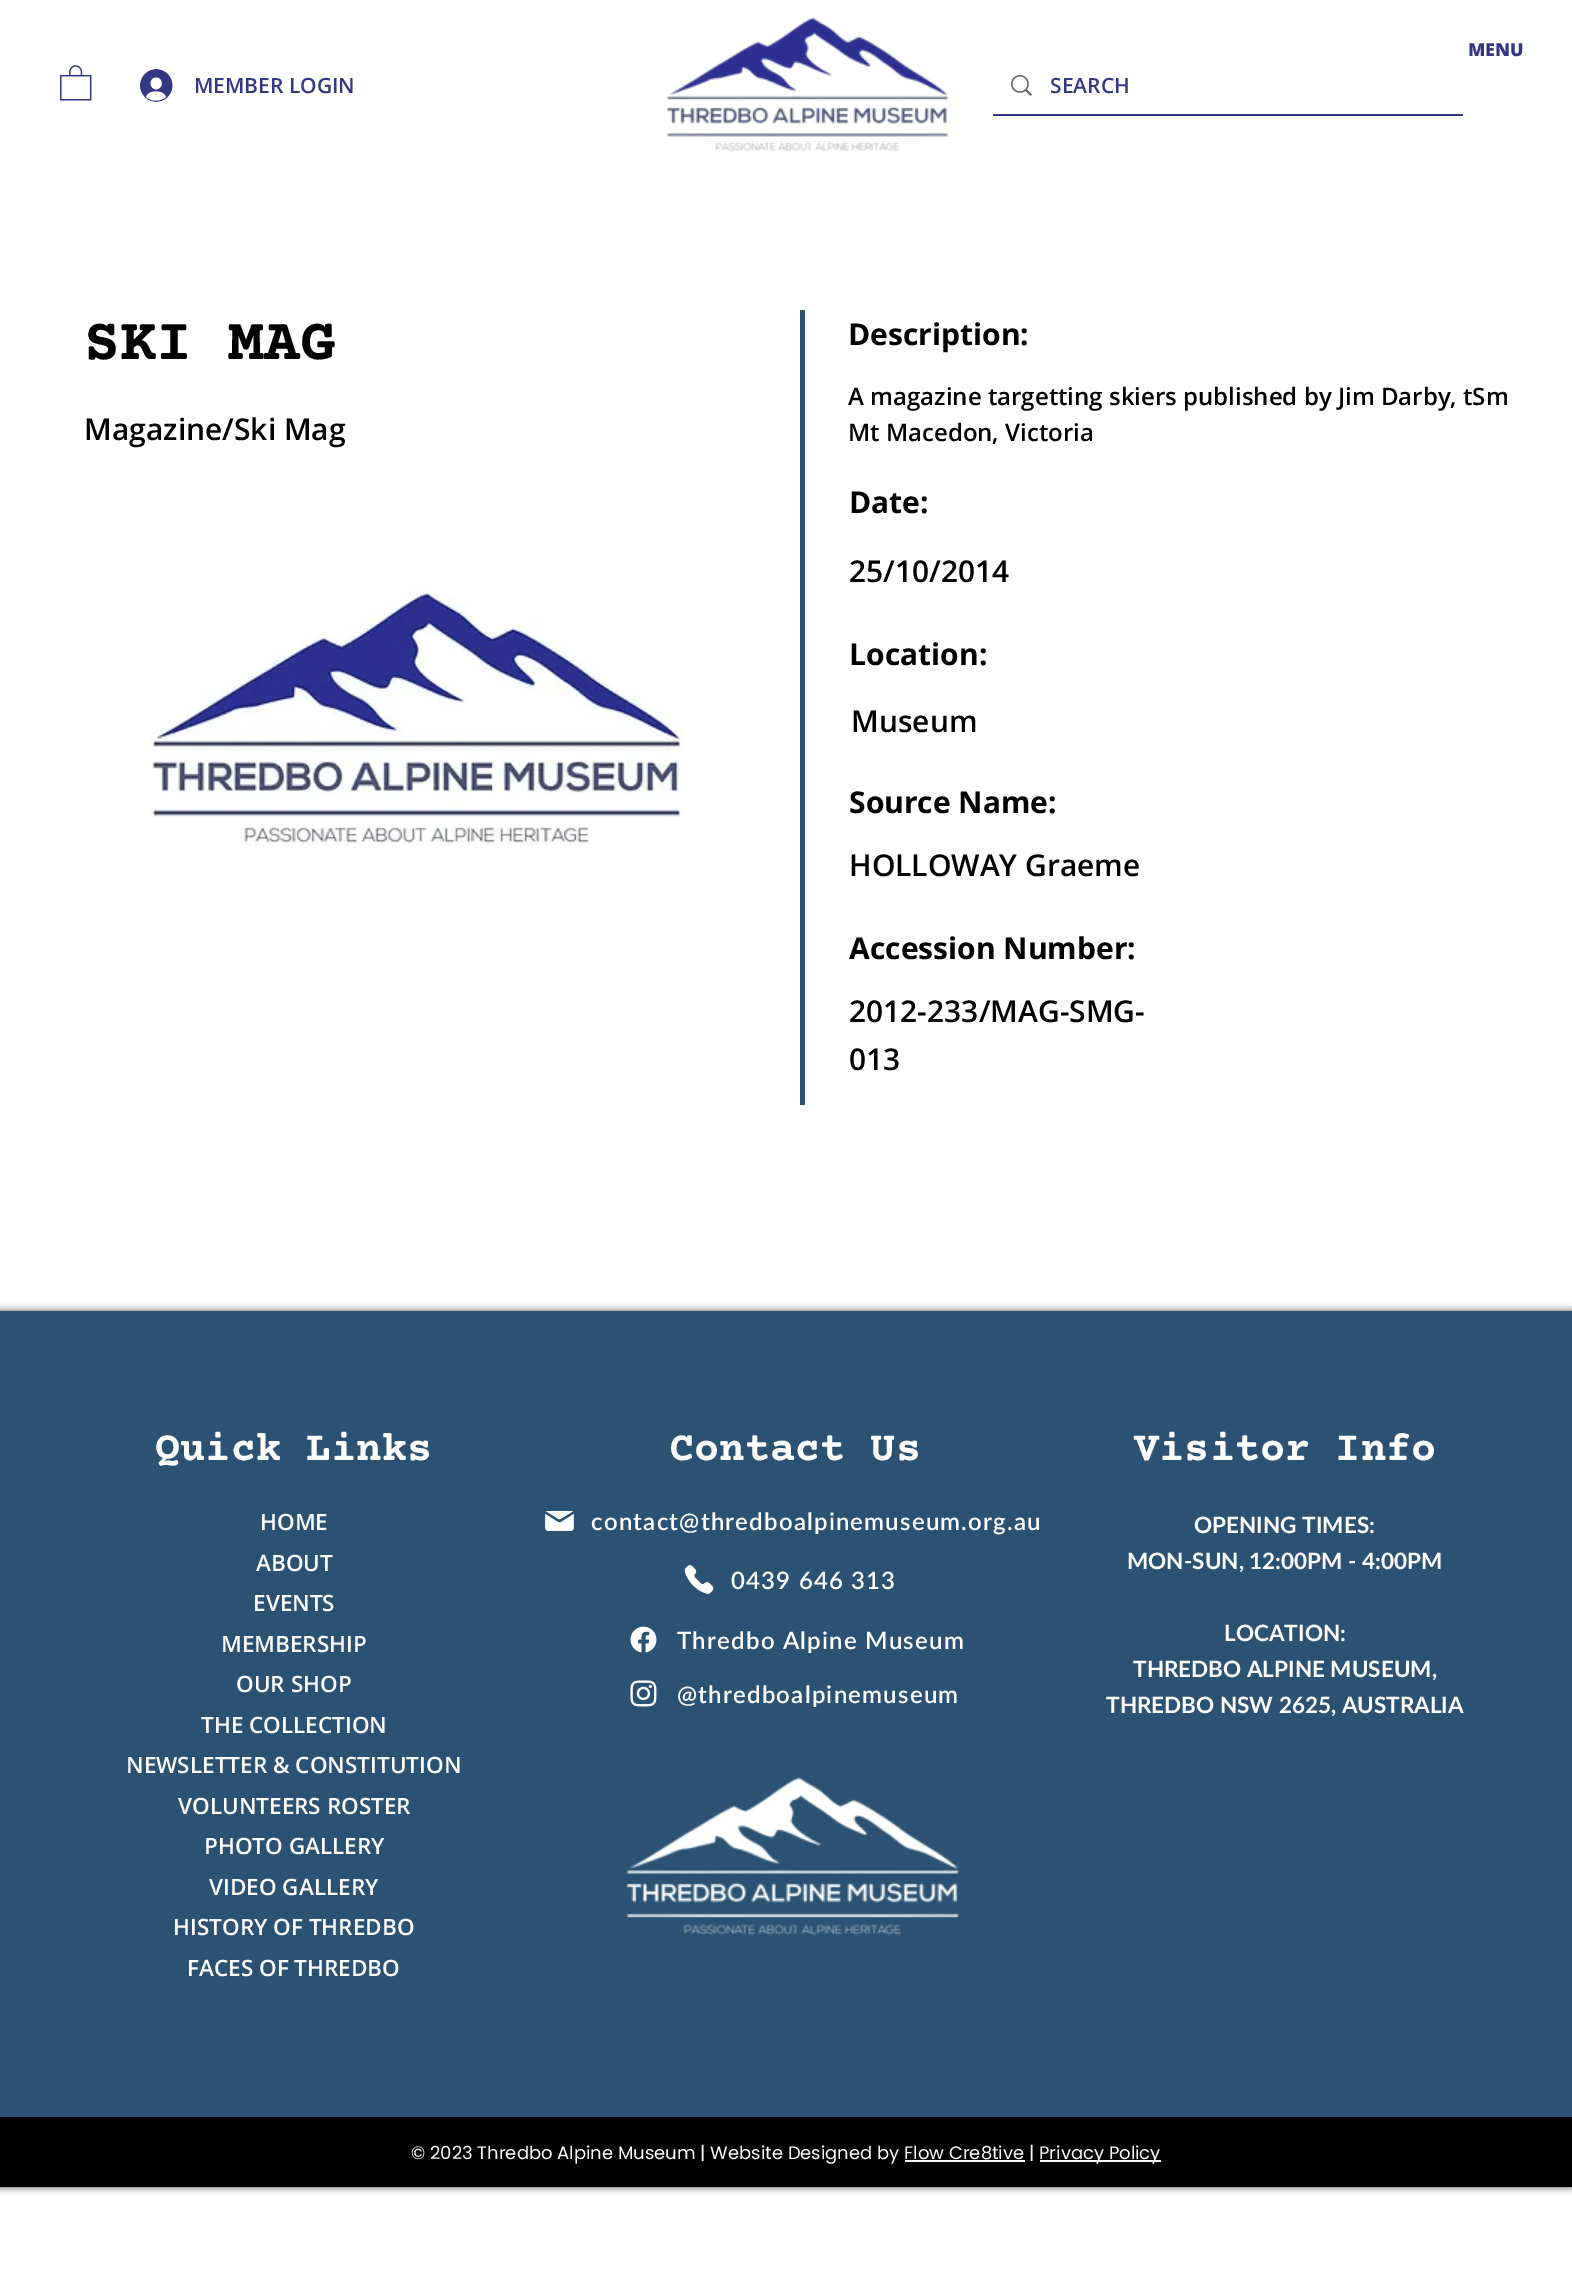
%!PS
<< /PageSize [1572 2279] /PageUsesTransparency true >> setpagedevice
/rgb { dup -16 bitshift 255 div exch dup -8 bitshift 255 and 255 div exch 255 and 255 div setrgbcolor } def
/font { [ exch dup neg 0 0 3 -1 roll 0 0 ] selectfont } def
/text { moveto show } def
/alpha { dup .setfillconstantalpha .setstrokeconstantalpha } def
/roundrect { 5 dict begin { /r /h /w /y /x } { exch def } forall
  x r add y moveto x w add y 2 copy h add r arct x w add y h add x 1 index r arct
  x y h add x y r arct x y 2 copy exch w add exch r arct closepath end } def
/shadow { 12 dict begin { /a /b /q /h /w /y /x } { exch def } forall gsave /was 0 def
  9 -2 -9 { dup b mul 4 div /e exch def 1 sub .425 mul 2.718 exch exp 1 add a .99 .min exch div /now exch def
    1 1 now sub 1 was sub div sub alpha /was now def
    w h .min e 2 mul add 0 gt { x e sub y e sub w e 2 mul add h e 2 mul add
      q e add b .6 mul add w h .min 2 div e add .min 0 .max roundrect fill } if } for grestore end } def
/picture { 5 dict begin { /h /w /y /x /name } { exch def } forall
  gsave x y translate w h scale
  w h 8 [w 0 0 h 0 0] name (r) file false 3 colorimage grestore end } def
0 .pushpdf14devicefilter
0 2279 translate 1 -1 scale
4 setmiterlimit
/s1 { /OpenSans-ExtraBold 18 font 16#343882 rgb } def
/s2 { /OpenSans-SemiBold 21 font 16#343882 rgb } def
/s3 { /CourierPrime-Bold 60 font 16#000000 rgb } def
/s4 { /OpenSans-SemiBold 30 font 16#000000 rgb } def
/s5 { /OpenSans-Bold 30 font 16#000000 rgb } def
/s6 { /OpenSans-SemiBold 24 font 16#000000 rgb } def
/s7 { /CourierPrime-Bold 42 font 16#FFFFFF rgb } def
/s8 { /OpenSans-SemiBold 22.5 font 16#FFFFFF rgb } def
/s9 { /Lato-Bold 22.5 font 16#FFFFFF rgb } def
/s10 { /Poppins-Regular 18 font 16#FFFFFF rgb } def
16#FFFFFF rgb
0 0 1572 2279 rectfill
s1
(MENU) 1468 56 text
(pic1.raw) 60 65 32 36 picture
(pic2.raw) 140 69 33 33 picture
s2
(MEMBER LOGIN) 194 93 text
(pic3.raw) 666 17 283 135 picture
993 114 470 2 rectfill
(pic4.raw) 1011 75 21 21 picture
(SEARCH) 1050 93 text
s3
(SKI MAG) 84 359 text
s4
(Magazine/Ski Mag) 84 440 text
(pic5.raw) 150 589 535 257 picture
16#2B5272 rgb
800 310 5 795 rectfill
s5
(Description:) 848 345 text
s6
(A magazine targetting skiers published by Jim Darby, tSm) 848 405 text
(Mt Macedon, Victoria) 848 441 text
s5
(Date:) 849 513 text
s4
(25/10/2014) 849 582 text
s5
(Location:) 849 665 text
s4
(Museum) 851 732 text
s5
(Source Name:) 849 813 text
s4
(HOLLOWAY Graeme) 849 876 text
s5
(Accession Number:) 849 959 text
s4
(2012-233/MAG-SMG-) 849 1022 text
(013) 849 1070 text
0 1311 1572 876 0 4 0.7 shadow
16#2B5272 rgb
0 1311 1572 806 rectfill
s7
(Quick Links) 155 1460 text
s8
(HOME) 260 1530 text
(ABOUT) 256 1571 text
(EVENTS) 253 1611 text
(MEMBERSHIP) 221 1652 text
(OUR SHOP) 236 1692 text
(THE COLLECTION) 201 1733 text
(NEWSLETTER & CONSTITUTION) 126 1773 text
(VOLUNTEERS ROSTER) 178 1814 text
(PHOTO GALLERY) 204 1854 text
(VIDEO GALLERY) 209 1895 text
(HISTORY OF THREDBO) 173 1935 text
(FACES OF THREDBO) 187 1976 text
s7
(Contact Us) 669 1460 text
(pic6.raw) 545 1511 29 20 picture
/Lato-SemiBold 24 font
591 1530 moveto 1.2 0 (contact@thredboalpinemuseum.org.au) ashow
(pic7.raw) 684 1565 30 29 picture
731 1589 moveto 1.2 0 (0439 646 313) ashow
(pic8.raw) 630 1626 27 27 picture
gsave
677 1625 288 28 rectclip
677 1649 moveto 1.2 0 (Thredbo Alpine Museum) ashow
grestore
(pic9.raw) 630 1680 27 27 picture
677 1703 moveto 1.2 0 (@thredboalpinemuseum) ashow
(pic10.raw) 626 1777 333 159 picture
s7
(Visitor Info) 1134 1460 text
s9
(OPENING TIMES:) 1194 1533 text
(MON-SUN, 12:00PM - 4:00PM) 1127 1569 text
(LOCATION:) 1224 1641 text
(THREDBO ALPINE MUSEUM,) 1133 1677 text
(THREDBO NSW 2625, AUSTRALIA) 1106 1713 text
16#000000 rgb
0 2117 1572 70 rectfill
s10
(© 2023 Thredbo Alpine Museum | Website Designed by Flow Cre8tive |) 411 2159 text
905 2160 120 2 rectfill
1040 2160 121 2 rectfill
(Privacy Policy) 1039 2159 text
.poppdf14devicefilter showpage
